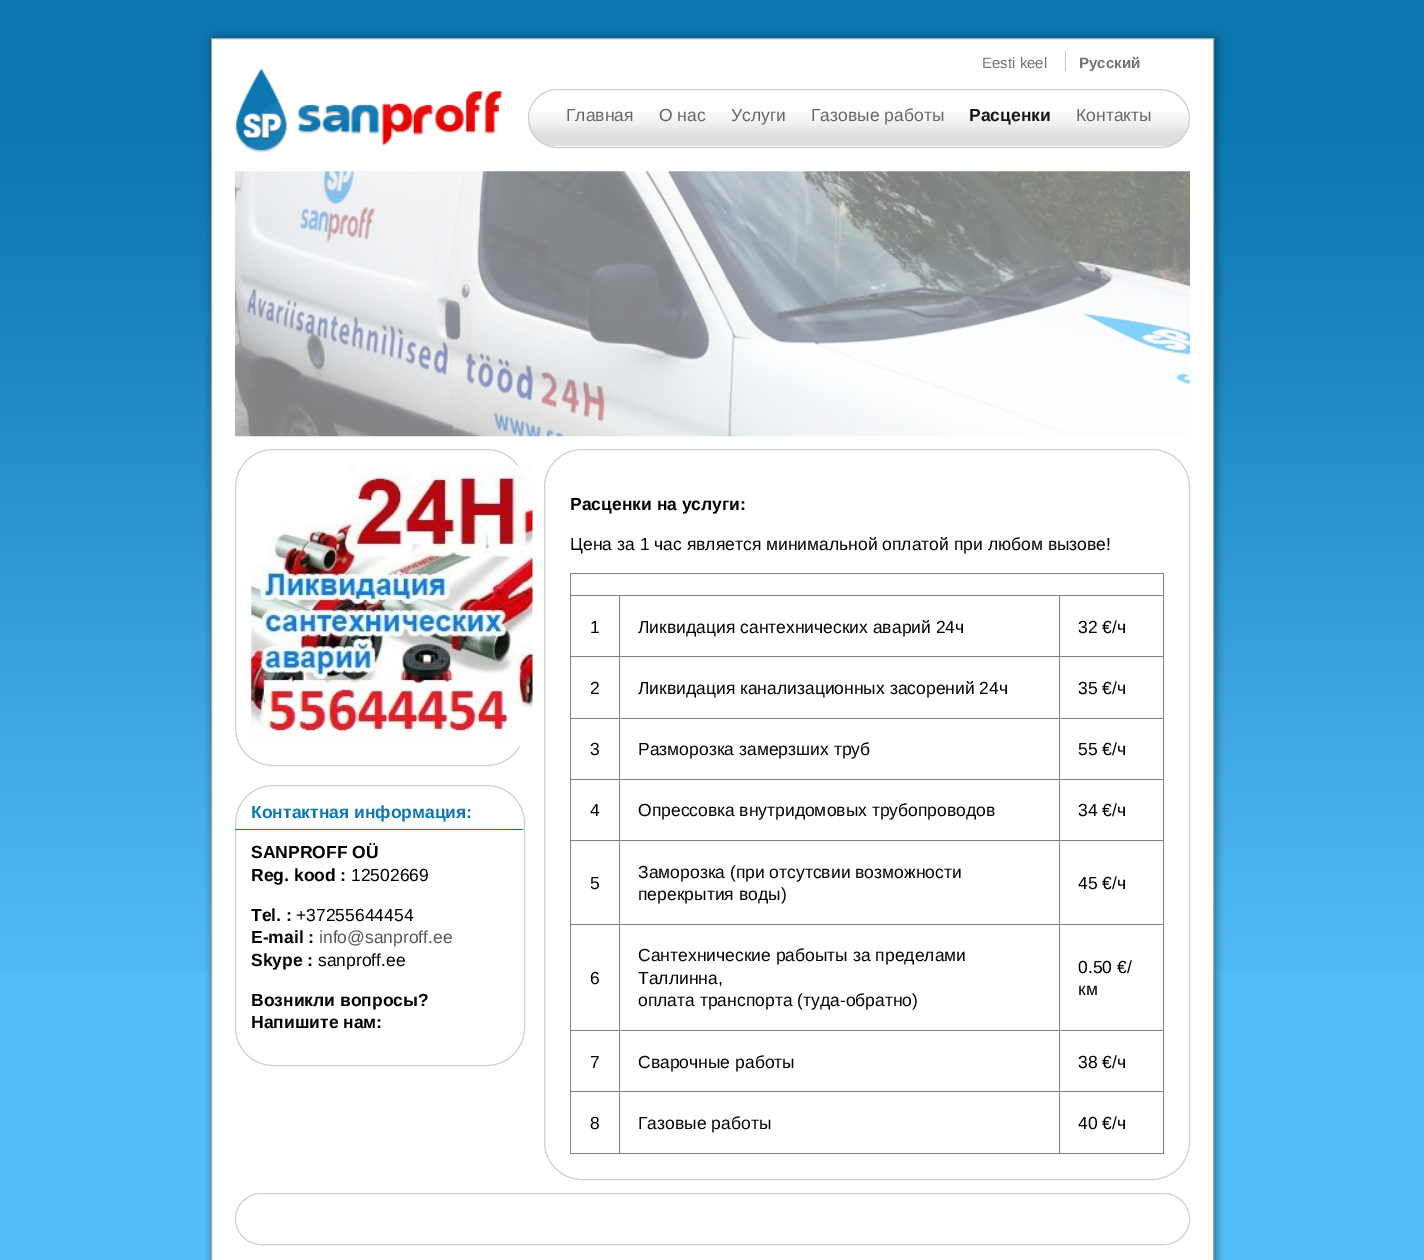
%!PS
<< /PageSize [1424 1260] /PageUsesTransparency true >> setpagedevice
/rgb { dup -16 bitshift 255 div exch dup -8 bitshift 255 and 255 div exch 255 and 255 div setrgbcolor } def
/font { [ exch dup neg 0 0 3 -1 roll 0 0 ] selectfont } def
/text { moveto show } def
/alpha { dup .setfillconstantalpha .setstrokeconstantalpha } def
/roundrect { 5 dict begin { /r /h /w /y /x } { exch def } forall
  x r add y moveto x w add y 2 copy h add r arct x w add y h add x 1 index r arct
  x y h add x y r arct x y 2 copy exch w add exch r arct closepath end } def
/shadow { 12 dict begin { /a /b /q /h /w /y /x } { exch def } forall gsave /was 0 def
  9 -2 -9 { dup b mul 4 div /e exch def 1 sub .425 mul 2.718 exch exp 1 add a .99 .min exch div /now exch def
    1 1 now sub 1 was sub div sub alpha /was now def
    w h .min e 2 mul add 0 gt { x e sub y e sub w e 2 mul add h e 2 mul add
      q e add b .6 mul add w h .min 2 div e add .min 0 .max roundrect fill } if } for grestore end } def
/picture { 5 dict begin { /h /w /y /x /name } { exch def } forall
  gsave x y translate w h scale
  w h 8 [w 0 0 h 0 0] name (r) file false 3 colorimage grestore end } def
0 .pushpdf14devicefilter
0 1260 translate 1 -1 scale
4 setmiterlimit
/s1 { /LiberationSans-Regular 15 font 16#727272 rgb } def
/s2 { /LiberationSans-Bold 15 font 16#727272 rgb } def
/s3 { /LiberationSans-Regular 17.5 font 16#656565 rgb } def
/s4 { /LiberationSans-Bold 17.5 font 16#151515 rgb } def
/s5 { /LiberationSans-Bold 17.5 font 16#0C76B1 rgb } def
/s6 { /LiberationSans-Bold 17.5 font 16#000000 rgb } def
/s7 { /LiberationSans-Regular 17.5 font 16#000000 rgb } def
/s8 { /LiberationSans-Regular 17.5 font 16#555555 rgb } def
16#FFFFFF rgb
0 0 1424 1260 rectfill
(pic1.raw) 0 0 1424 38 picture
16#54BEFA rgb
0 972 1424 288 rectfill
(pic2.raw) 0 38 1424 934 picture
16#000000 rgb
213 39 1002 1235 0 4.5 0.54 shadow
16#FFFFFF rgb
211.5 38.5 moveto 1213.5 38.5 lineto 1213.5 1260.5 lineto 211.5 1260.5 lineto closepath gsave fill grestore
16#A7A7A7 rgb
stroke
(pic3.raw) 235 68 268 85 picture
s1
(Eesti keel) 982 68 text
16#C5C5C5 rgb
1065 51 1 20 rectfill
s2
(Русский) 1079 68 text
(pic4.raw) 528 112 662 35 picture
16#CFCFCF rgb
528.5 89.5 661 58 29 roundrect stroke
s3
(Главная) 566 121 text
(О нас) 659 121 text
(Услуги) 731 121 text
(Газовые работы) 811 121 text
s4
(Расценки) 969 121 text
s3
(Контакты) 1076 121 text
(pic5.raw) 235 171 955 266 picture
16#CFCFCF rgb
235.5 449.5 289 316 37.5 roundrect stroke
(pic6.raw) 251 465 282 282 picture
235.5 785.5 289 280 37.5 roundrect stroke
s5
(Контактная информация:) 251 818 text
235 829 288 1 rectfill
s6
(SANPROFF OÜ) 251 858 text
(Reg. kood :) 251 881 text
s7
(12502669) 351 881 text
s6
(Tel. :) 251 921 text
s7
(+37255644454) 296 921 text
s6
(E-mail :) 251 943 text
s8
(info@sanproff.ee) 319 943 text
s6
(Skype :) 251 966 text
s7
(sanproff.ee) 318 966 text
s6
(Возникли вопросы?) 251 1006 text
(Напишите нам:) 251 1028 text
16#CFCFCF rgb
544.5 449.5 645 730 37.5 roundrect stroke
s6
(Расценки на услуги:) 570 510 text
s7
(Цена за 1 час является минимальной оплатой при любом вызове!) 570 550 text
16#808080 rgb
570 573 594 1 rectfill
1163 573 1 581 rectfill
570 1153 594 1 rectfill
570 573 1 581 rectfill
1059 595 105 1 rectfill
1059 656 105 1 rectfill
1059 718 105 1 rectfill
1059 779 105 1 rectfill
1059 840 105 1 rectfill
1059 924 105 1 rectfill
1059 1030 105 1 rectfill
1059 1091 105 1 rectfill
1059 1091 1 63 rectfill
619 1091 441 1 rectfill
1059 1030 1 63 rectfill
619 1030 441 1 rectfill
1059 924 1 107 rectfill
619 924 441 1 rectfill
1059 840 1 85 rectfill
619 840 441 1 rectfill
1059 779 1 62 rectfill
619 779 441 1 rectfill
1059 718 1 62 rectfill
619 718 441 1 rectfill
1059 656 1 63 rectfill
619 656 441 1 rectfill
1059 595 1 63 rectfill
619 595 441 1 rectfill
619 1091 1 63 rectfill
570 1091 50 1 rectfill
619 1030 1 63 rectfill
570 1030 50 1 rectfill
619 924 1 107 rectfill
570 924 50 1 rectfill
619 840 1 85 rectfill
570 840 50 1 rectfill
619 779 1 62 rectfill
570 779 50 1 rectfill
619 718 1 62 rectfill
570 718 50 1 rectfill
619 656 1 63 rectfill
570 656 50 1 rectfill
619 595 1 63 rectfill
570 595 50 1 rectfill
s7
(1) 590 633 text
(Ликвидация сантехнических аварий 24ч) 638 633 text
(32 €/ч) 1078 633 text
(2) 590 694 text
(Ликвидация канализационных засорений 24ч) 638 694 text
(35 €/ч) 1078 694 text
(3) 590 755 text
(Разморозка замерзших труб) 638 755 text
(55 €/ч) 1078 755 text
(4) 590 816 text
(Опрессовка внутридомовых трубопроводов) 638 816 text
(34 €/ч) 1078 816 text
(5) 590 889 text
(Заморозка \(при отсутсвии возможности) 638 878 text
(перекрытия воды\)) 638 900 text
(45 €/ч) 1078 889 text
(6) 590 984 text
(Сантехнические рабоыты за пределами) 638 961 text
(Таллинна,) 638 984 text
(оплата транспорта \(туда-обратно\)) 638 1006 text
(0.50 €/) 1078 973 text
(км) 1078 995 text
(7) 590 1068 text
(Cварочные работы) 638 1068 text
(38 €/ч) 1078 1068 text
(8) 590 1129 text
(Газовые работы) 638 1129 text
(40 €/ч) 1078 1129 text
16#CFCFCF rgb
235.5 1193.5 954 51 25.5 roundrect stroke
.poppdf14devicefilter showpage
